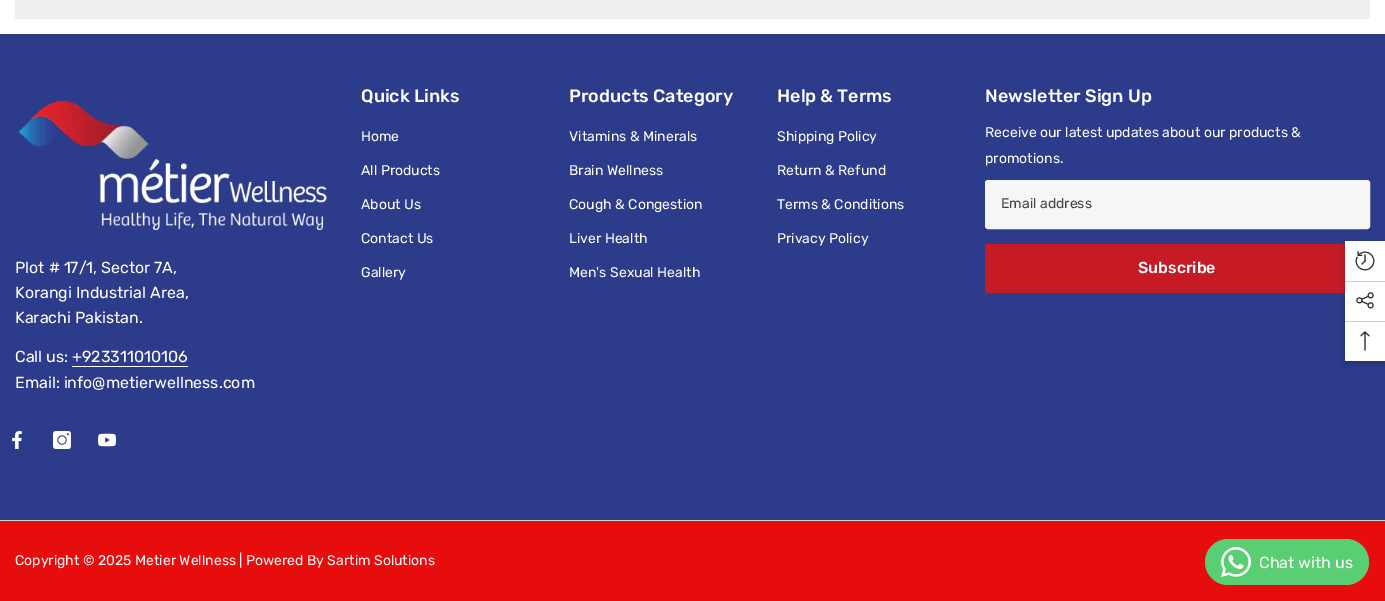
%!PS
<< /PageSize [1385 601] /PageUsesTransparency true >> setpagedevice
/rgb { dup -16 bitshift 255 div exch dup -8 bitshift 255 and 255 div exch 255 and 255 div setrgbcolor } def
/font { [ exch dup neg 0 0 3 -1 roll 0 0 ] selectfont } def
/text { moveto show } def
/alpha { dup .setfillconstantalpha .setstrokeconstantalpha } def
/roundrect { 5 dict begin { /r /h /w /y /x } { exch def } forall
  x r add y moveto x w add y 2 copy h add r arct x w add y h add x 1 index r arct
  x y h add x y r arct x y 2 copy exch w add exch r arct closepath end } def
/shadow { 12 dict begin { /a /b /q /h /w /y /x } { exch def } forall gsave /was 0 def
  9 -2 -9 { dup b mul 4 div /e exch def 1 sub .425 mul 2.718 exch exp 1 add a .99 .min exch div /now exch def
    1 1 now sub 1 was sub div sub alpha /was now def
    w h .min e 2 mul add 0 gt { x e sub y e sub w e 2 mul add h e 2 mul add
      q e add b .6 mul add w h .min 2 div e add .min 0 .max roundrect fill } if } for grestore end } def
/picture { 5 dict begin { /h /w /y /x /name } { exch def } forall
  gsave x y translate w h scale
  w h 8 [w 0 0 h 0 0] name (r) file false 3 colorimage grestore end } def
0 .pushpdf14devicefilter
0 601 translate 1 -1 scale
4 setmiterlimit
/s1 { /Rubik-Medium 18 font 16#FFFFFF rgb } def
/s2 { /Rubik-Regular 14 font 16#FFFFFF rgb } def
/s3 { /Rubik-Regular 14 font 16#424242 rgb } def
/s4 { /Rubik-Medium 16 font 16#FFFFFF rgb } def
/s5 { /Rubik-Regular 16 font 16#FFFFFF rgb } def
/s6 { /Rubik-Regular 14 font 16#FFF9F9 rgb } def
16#FFFFFF rgb
0 0 1385 601 rectfill
16#EEEEEE rgb
15 0 1355 19 rectfill
16#2C3B8A rgb
0 34 1385 486 rectfill
s1
(Quick Links) 361 102 text
s2
(Home) 361 141 text
(All Products) 361 175 text
(About Us) 361 209 text
(Contact Us) 361 243 text
(Gallery) 361 277 text
s1
(Products Category) 569 102 text
s2
(Vitamins & Minerals) 569 141 text
(Brain Wellness) 569 175 text
(Cough & Congestion) 569 209 text
(Liver Health) 569 243 text
(Men's Sexual Health) 569 277 text
s1
(Help & Terms) 777 102 text
s2
(Shipping Policy) 777 141 text
(Return & Refund) 777 175 text
(Terms & Conditions) 777 209 text
(Privacy Policy) 777 243 text
s1
(Newsletter Sign Up) 985 102 text
s2
(Receive our latest updates about our products &) 985 137 text
(promotions.) 985 163 text
16#F6F6F6 rgb
985.5 180.5 384 48 2.5 roundrect gsave fill grestore
stroke
s3
(Email address) 1001 208 text
16#C61A25 rgb
985.5 244.5 384 48 2.5 roundrect gsave fill grestore
stroke
s4
(Subscribe) 1138 273 text
(pic1.raw) 18 100 309 130 picture
s5
(Plot # 17/1, Sector 7A,) 15 273 text
(Korangi Industrial Area,) 15 298 text
(Karachi Pakistan.) 15 323 text
(Call us: +923311010106) 15 362 text
72 366 116 1 rectfill
(Email: info@metierwellness.com) 15 388 text
(pic2.raw) 12 431 10 18 picture
(pic3.raw) 53 431 18 18 picture
(pic4.raw) 98 433 18 14 picture
16#E70D0D rgb
0 521 1385 80 rectfill
16#D3D3D3 rgb
0 520 1385 1 rectfill
s6
(Copyright © 2025 Metier Wellness | Powered By Sartim Solutions) 15 565 text
16#000000 rgb
1345 244 40 120 0 3.5 0.2 shadow
16#FFFFFF rgb
1345 241 40 120 rectfill
(pic5.raw) 1355 251 20 20 picture
16#CCCCCC rgb
1345 281 40 1 rectfill
(pic6.raw) 1356 292 18 17 picture
1345 321 40 1 rectfill
(pic7.raw) 1360 331 10 20 picture
16#59CE72 rgb
1205 539 164 46 23 roundrect fill
(pic8.raw) 1221 547 30 30 picture
s5
(Chat with us) 1259 568 text
.poppdf14devicefilter showpage
